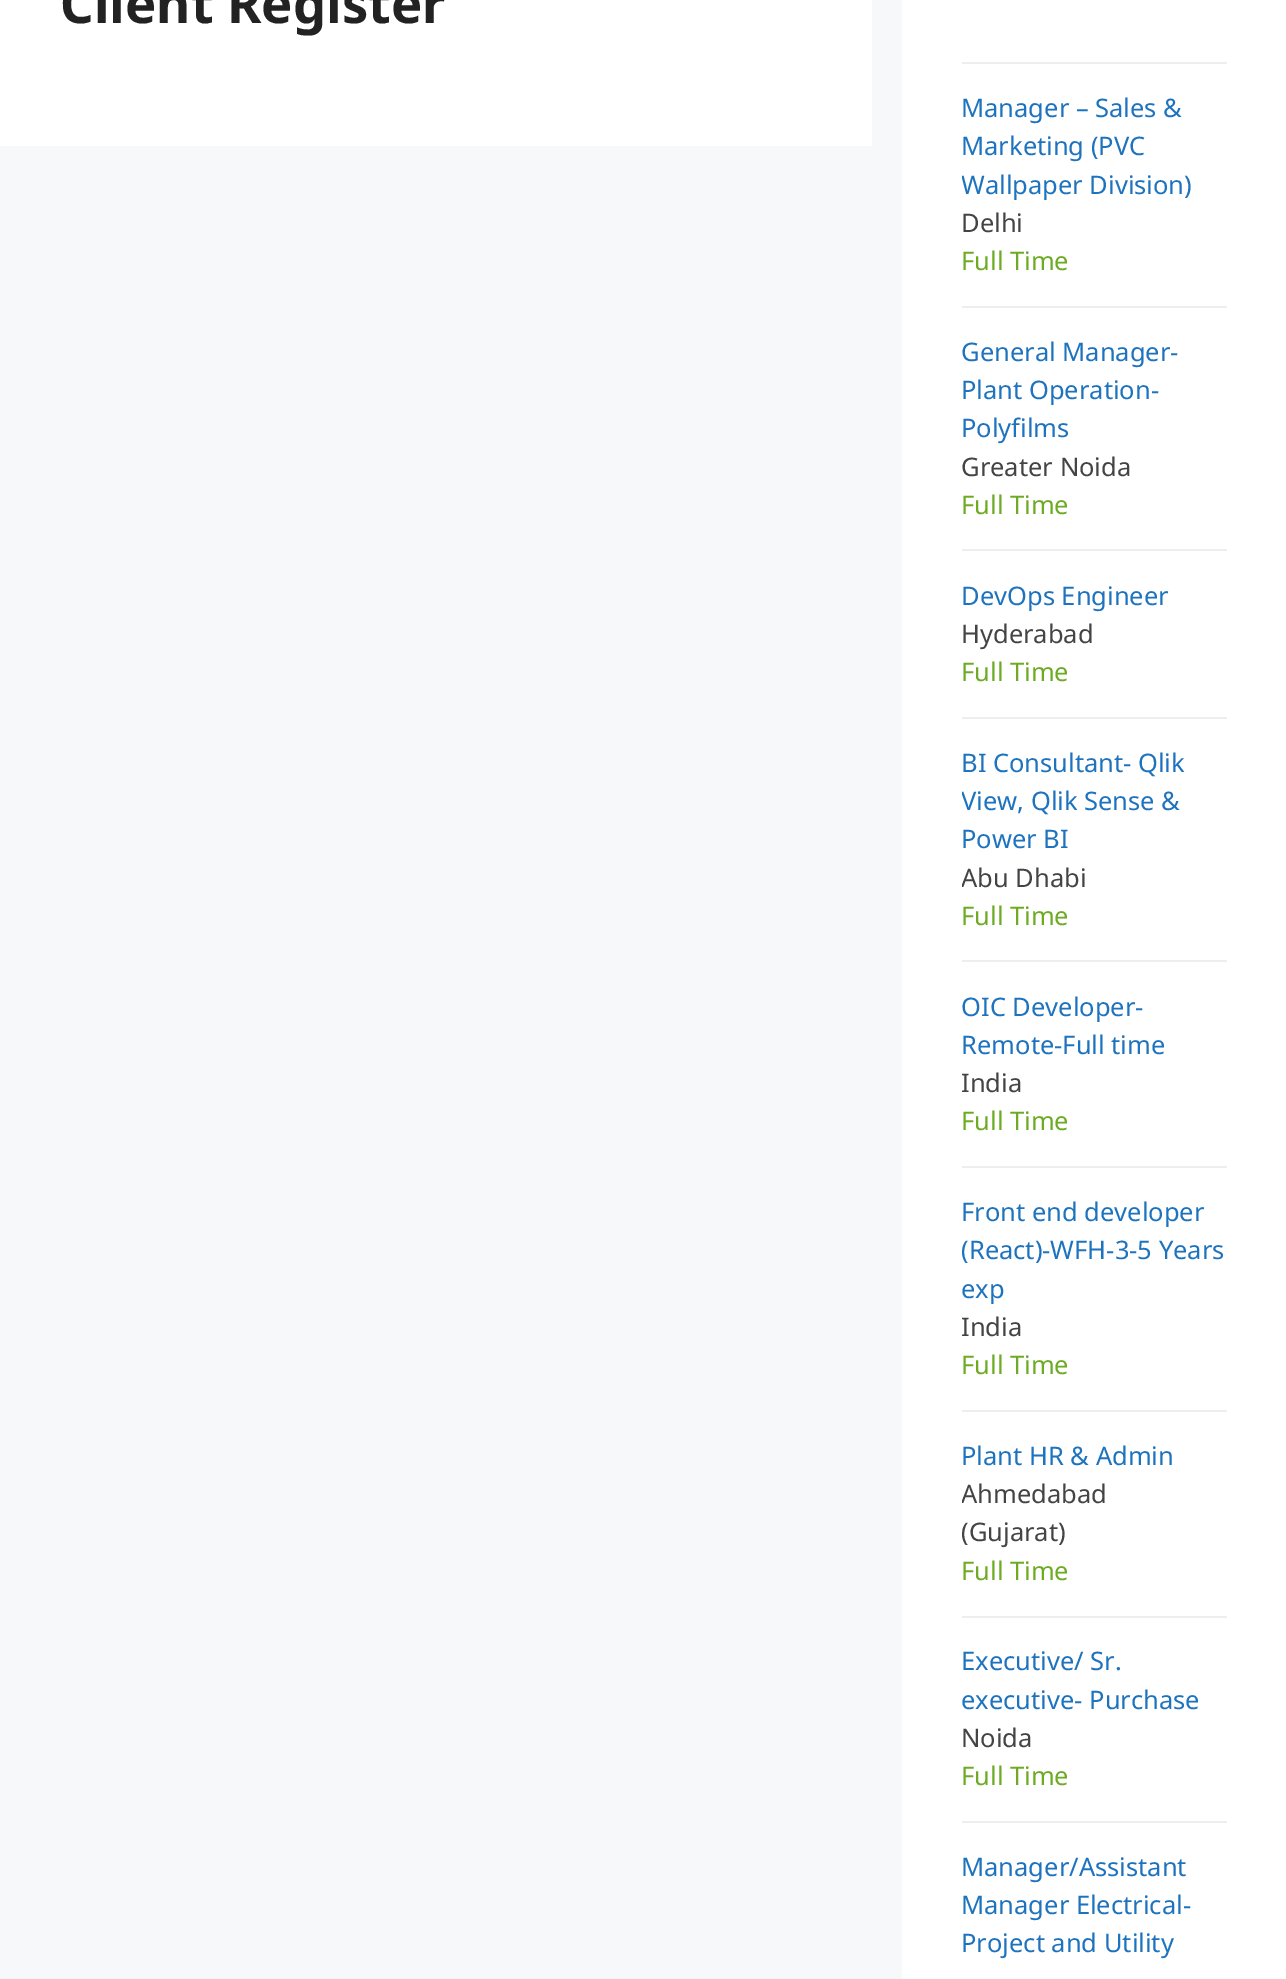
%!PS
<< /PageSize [1286 1979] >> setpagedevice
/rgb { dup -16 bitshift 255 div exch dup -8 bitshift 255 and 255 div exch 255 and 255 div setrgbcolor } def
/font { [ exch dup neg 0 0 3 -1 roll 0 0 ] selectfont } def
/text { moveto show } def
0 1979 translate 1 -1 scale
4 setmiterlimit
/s1 { /NotoSans-Bold 52.5 font 16#222222 rgb } def
/s2 { /NotoSans-Regular 25.5 font 16#1E73BE rgb } def
/s3 { /NotoSans-Regular 25.5 font 16#444444 rgb } def
/s4 { /NotoSans-Regular 25.5 font 16#6DAB22 rgb } def
16#F7F8F9 rgb
0 0 1286 1979 rectfill
16#FFFFFF rgb
0 0 872 146 rectfill
s1
(Client Register) 60 23 text
16#FFFFFF rgb
902 0 384 1979 rectfill
16#EEEEEE rgb
962 62 265 2 rectfill
962 306 265 2 rectfill
s2
(Manager – Sales &) 961 117 text
(Marketing \(PVC) 961 155 text
gsave
962 89 265 192 rectclip
(Wallpaper Division\)) 961 194 text
grestore
s3
(Delhi) 961 232 text
s4
(Full Time) 961 270 text
16#EEEEEE rgb
962 549 265 2 rectfill
s2
(General Manager-) 961 361 text
(Plant Operation-) 961 399 text
(Polyfilms) 961 437 text
s3
(Greater Noida) 961 476 text
s4
(Full Time) 961 514 text
16#EEEEEE rgb
962 717 265 2 rectfill
s2
(DevOps Engineer) 961 605 text
s3
(Hyderabad) 961 643 text
s4
(Full Time) 961 681 text
16#EEEEEE rgb
962 960 265 2 rectfill
s2
(BI Consultant- Qlik) 961 772 text
gsave
962 744 265 191 rectclip
(View, Qlik Sense &) 961 810 text
grestore
(Power BI) 961 848 text
gsave
962 744 265 191 rectclip
s3
(Abu Dhabi) 961 887 text
grestore
s4
(Full Time) 961 925 text
16#EEEEEE rgb
962 1166 265 2 rectfill
s2
(OIC Developer-) 961 1016 text
(Remote-Full time) 961 1054 text
s3
(India) 961 1092 text
s4
(Full Time) 961 1130 text
16#EEEEEE rgb
962 1410 265 2 rectfill
s2
(Front end developer) 961 1221 text
(\(React\)-WFH-3-5 Years) 961 1259 text
(exp) 961 1298 text
s3
(India) 961 1336 text
s4
(Full Time) 961 1374 text
16#EEEEEE rgb
962 1616 265 2 rectfill
s2
(Plant HR & Admin) 961 1465 text
gsave
962 1437 265 153 rectclip
s3
(Ahmedabad) 961 1503 text
grestore
s3
(\(Gujarat\)) 961 1541 text
s4
(Full Time) 961 1580 text
16#EEEEEE rgb
962 1821 265 2 rectfill
s2
(Executive/ Sr.) 961 1670 text
(executive- Purchase) 961 1709 text
s3
(Noida) 961 1747 text
s4
(Full Time) 961 1785 text
s2
(Manager/Assistant) 961 1876 text
(Manager Electrical-) 961 1914 text
(Project and Utility) 961 1952 text
showpage
